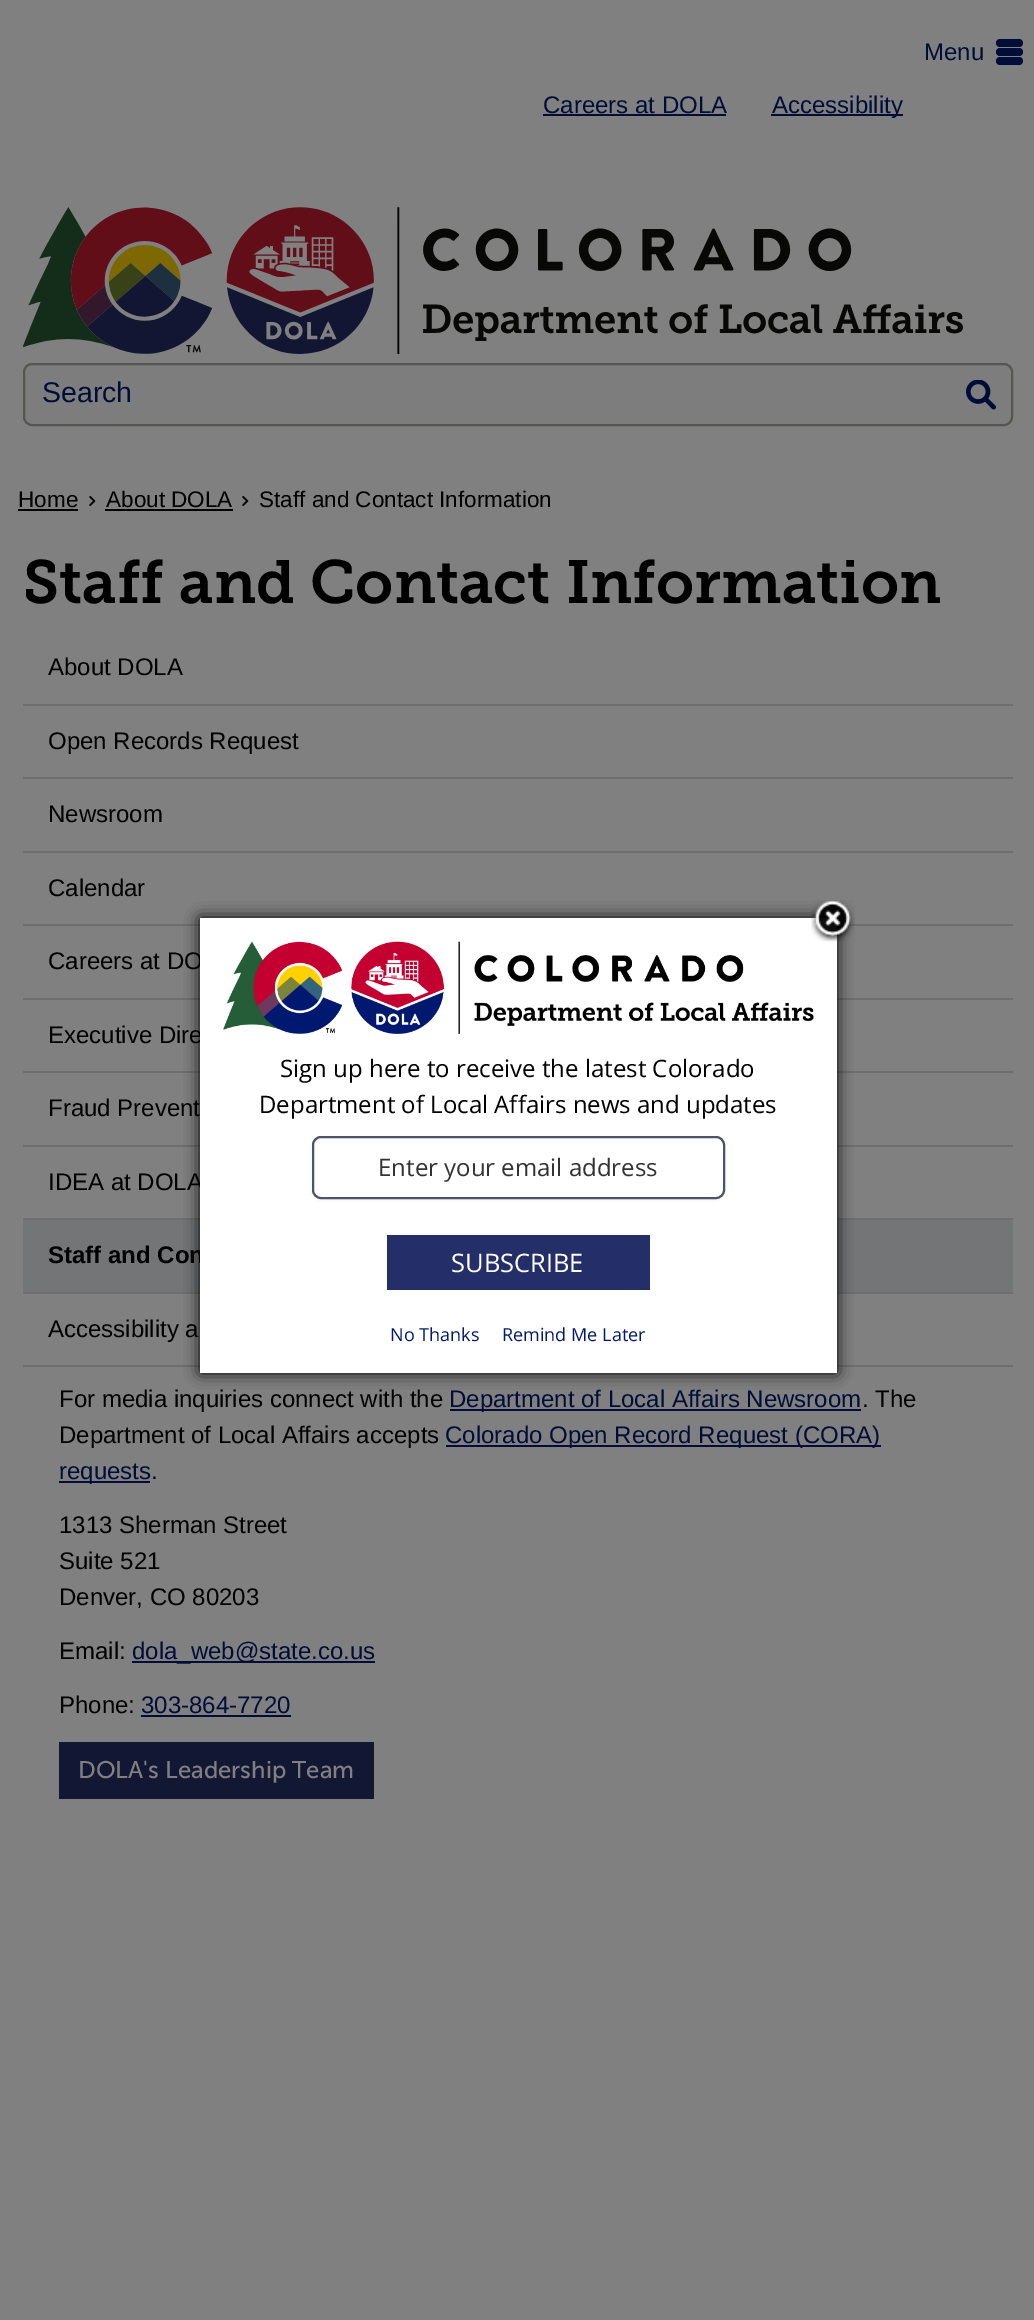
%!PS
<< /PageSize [1034 2320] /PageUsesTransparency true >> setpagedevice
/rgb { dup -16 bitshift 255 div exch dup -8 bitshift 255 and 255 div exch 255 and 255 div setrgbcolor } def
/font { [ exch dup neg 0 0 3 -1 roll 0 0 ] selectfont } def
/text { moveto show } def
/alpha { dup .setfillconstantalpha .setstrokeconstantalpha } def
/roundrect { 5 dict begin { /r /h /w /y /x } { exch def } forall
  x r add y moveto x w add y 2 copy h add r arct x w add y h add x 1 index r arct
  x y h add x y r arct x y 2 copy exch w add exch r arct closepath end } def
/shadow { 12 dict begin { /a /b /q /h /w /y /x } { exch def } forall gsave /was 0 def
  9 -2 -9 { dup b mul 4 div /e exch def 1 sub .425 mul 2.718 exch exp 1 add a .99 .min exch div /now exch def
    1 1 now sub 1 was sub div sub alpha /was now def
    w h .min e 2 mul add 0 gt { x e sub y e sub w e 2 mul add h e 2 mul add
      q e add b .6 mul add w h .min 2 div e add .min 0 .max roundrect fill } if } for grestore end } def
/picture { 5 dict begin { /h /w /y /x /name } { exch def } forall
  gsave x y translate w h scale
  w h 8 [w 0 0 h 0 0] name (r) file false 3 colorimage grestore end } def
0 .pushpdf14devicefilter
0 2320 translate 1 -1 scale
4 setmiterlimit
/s1 { /LiberationSans-Regular 24 font 16#000D38 rgb } def
/s2 { /LiberationSans-Regular 28.5 font 16#000D38 rgb } def
/s3 { /LiberationSans-Regular 22.5 font 16#000000 rgb } def
/s4 { /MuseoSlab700-SemiBold 60.75 font 16#000000 rgb } def
/s5 { /LiberationSans-Regular 24 font 16#000000 rgb } def
/s6 { /LiberationSans-Bold 24 font 16#000000 rgb } def
/s7 { /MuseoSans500-Regular 24 font 16#808080 rgb } def
/s8 { /OpenSans-Regular 24 font 16#000000 rgb } def
/s9 { /OpenSans-Regular 24 font 16#333333 rgb } def
/s10 { /OpenSans-Regular 25.5 font 16#FFFFFF rgb } def
/s11 { /OpenSans-Regular 18 font 16#001970 rgb } def
16#808080 rgb
0 0 1034 2320 rectfill
s1
(Menu) 924 60 text
996 39 27 8 4 roundrect fill
996 48 27 8 4 roundrect fill
996 57 27 8 4 roundrect fill
(Careers at DOLA) 543 113 text
543 114 183 2 rectfill
771 114 132 2 rectfill
(Accessibility) 772 113 text
(pic1.raw) 23 207 940 147 picture
16#7D7D7D rgb
24 364 988 61 8 roundrect gsave fill grestore
16#555650 rgb
2 setlinewidth
stroke
s2
(Search) 42 402 text
(pic2.raw) 966 380 30 30 picture
s3
(Home) 18 507 text
18 509 60 2 rectfill
(pic3.raw) 89 495 7 12 picture
(About DOLA) 106 507 text
105 509 128 2 rectfill
(pic3.raw) 242 495 7 12 picture
(Staff and Contact Information) 259 507 text
s4
(Staff and Contact Information) 23 603 text
16#6E6E6E rgb
23 704 990 2 rectfill
s5
(About DOLA) 48 675 text
16#6E6E6E rgb
23 777 990 2 rectfill
s5
(Open Records Request) 48 749 text
16#6E6E6E rgb
23 851 990 2 rectfill
s5
(Newsroom) 48 822 text
16#6E6E6E rgb
23 924 990 2 rectfill
s5
(Calendar) 48 896 text
16#6E6E6E rgb
23 998 990 2 rectfill
s5
(Careers at DO) 48 969 text
16#6E6E6E rgb
23 1071 990 2 rectfill
s5
(Executive Dire) 48 1043 text
16#6E6E6E rgb
23 1145 990 2 rectfill
s5
(Fraud Prevent) 48 1116 text
16#6E6E6E rgb
23 1218 990 2 rectfill
s5
(IDEA at DOLA) 48 1190 text
16#737577 rgb
23 1220 990 72 rectfill
16#6E6E6E rgb
23 1292 990 2 rectfill
s6
(Staff and Con) 48 1263 text
16#6E6E6E rgb
23 1365 990 2 rectfill
s5
(Accessibility a) 48 1337 text
(For media inquiries connect with the) 59 1407 text
16#000D38 rgb
450 1409 411 2 rectfill
(Department of Local Affairs Newsroom) 449 1407 text
s5
(. The) 862 1407 text
(Department of Local Affairs accepts) 59 1443 text
16#000D38 rgb
446 1445 435 2 rectfill
(Colorado Open Record Request \(CORA\)) 445 1443 text
59 1481 91 2 rectfill
(requests) 59 1479 text
s5
(.) 151 1479 text
(1313 Sherman Street) 59 1533 text
(Suite 521) 59 1569 text
(Denver, CO 80203) 59 1605 text
(Email:) 59 1659 text
16#000D38 rgb
132 1661 243 2 rectfill
(dola_web@state.co.us) 132 1659 text
s5
(Phone:) 59 1713 text
s1
(303-864-7720) 141 1713 text
141 1715 150 2 rectfill
16#121734 rgb
59 1742 315 57 rectfill
s7
(DOLA's Leadership Team) 78 1778 text
16#000000 rgb
200 918 637 455 0 7.5 1 shadow
16#FFFFFF rgb
200 918 637 455 rectfill
(pic5.raw) 223 941 591 93 picture
(pic4.raw) 811 900 44 42 picture
s8
(Sign up here to receive the latest Colorado) 280 1077 text
(Department of Local Affairs news and updates) 259 1113 text
312 1137 413 63 9 1.5 0.05 shadow
16#FFFFFF rgb
313 1137 411 61 8 roundrect gsave fill grestore
16#4A5568 rgb
stroke
s9
(Enter your email address) 378 1176 text
16#242E68 rgb
387 1235 263 55 rectfill
s10
(SUBSCRIBE) 451 1272 text
s11
(No Thanks) 390 1341 text
(Remind Me Later) 502 1341 text
.poppdf14devicefilter showpage
